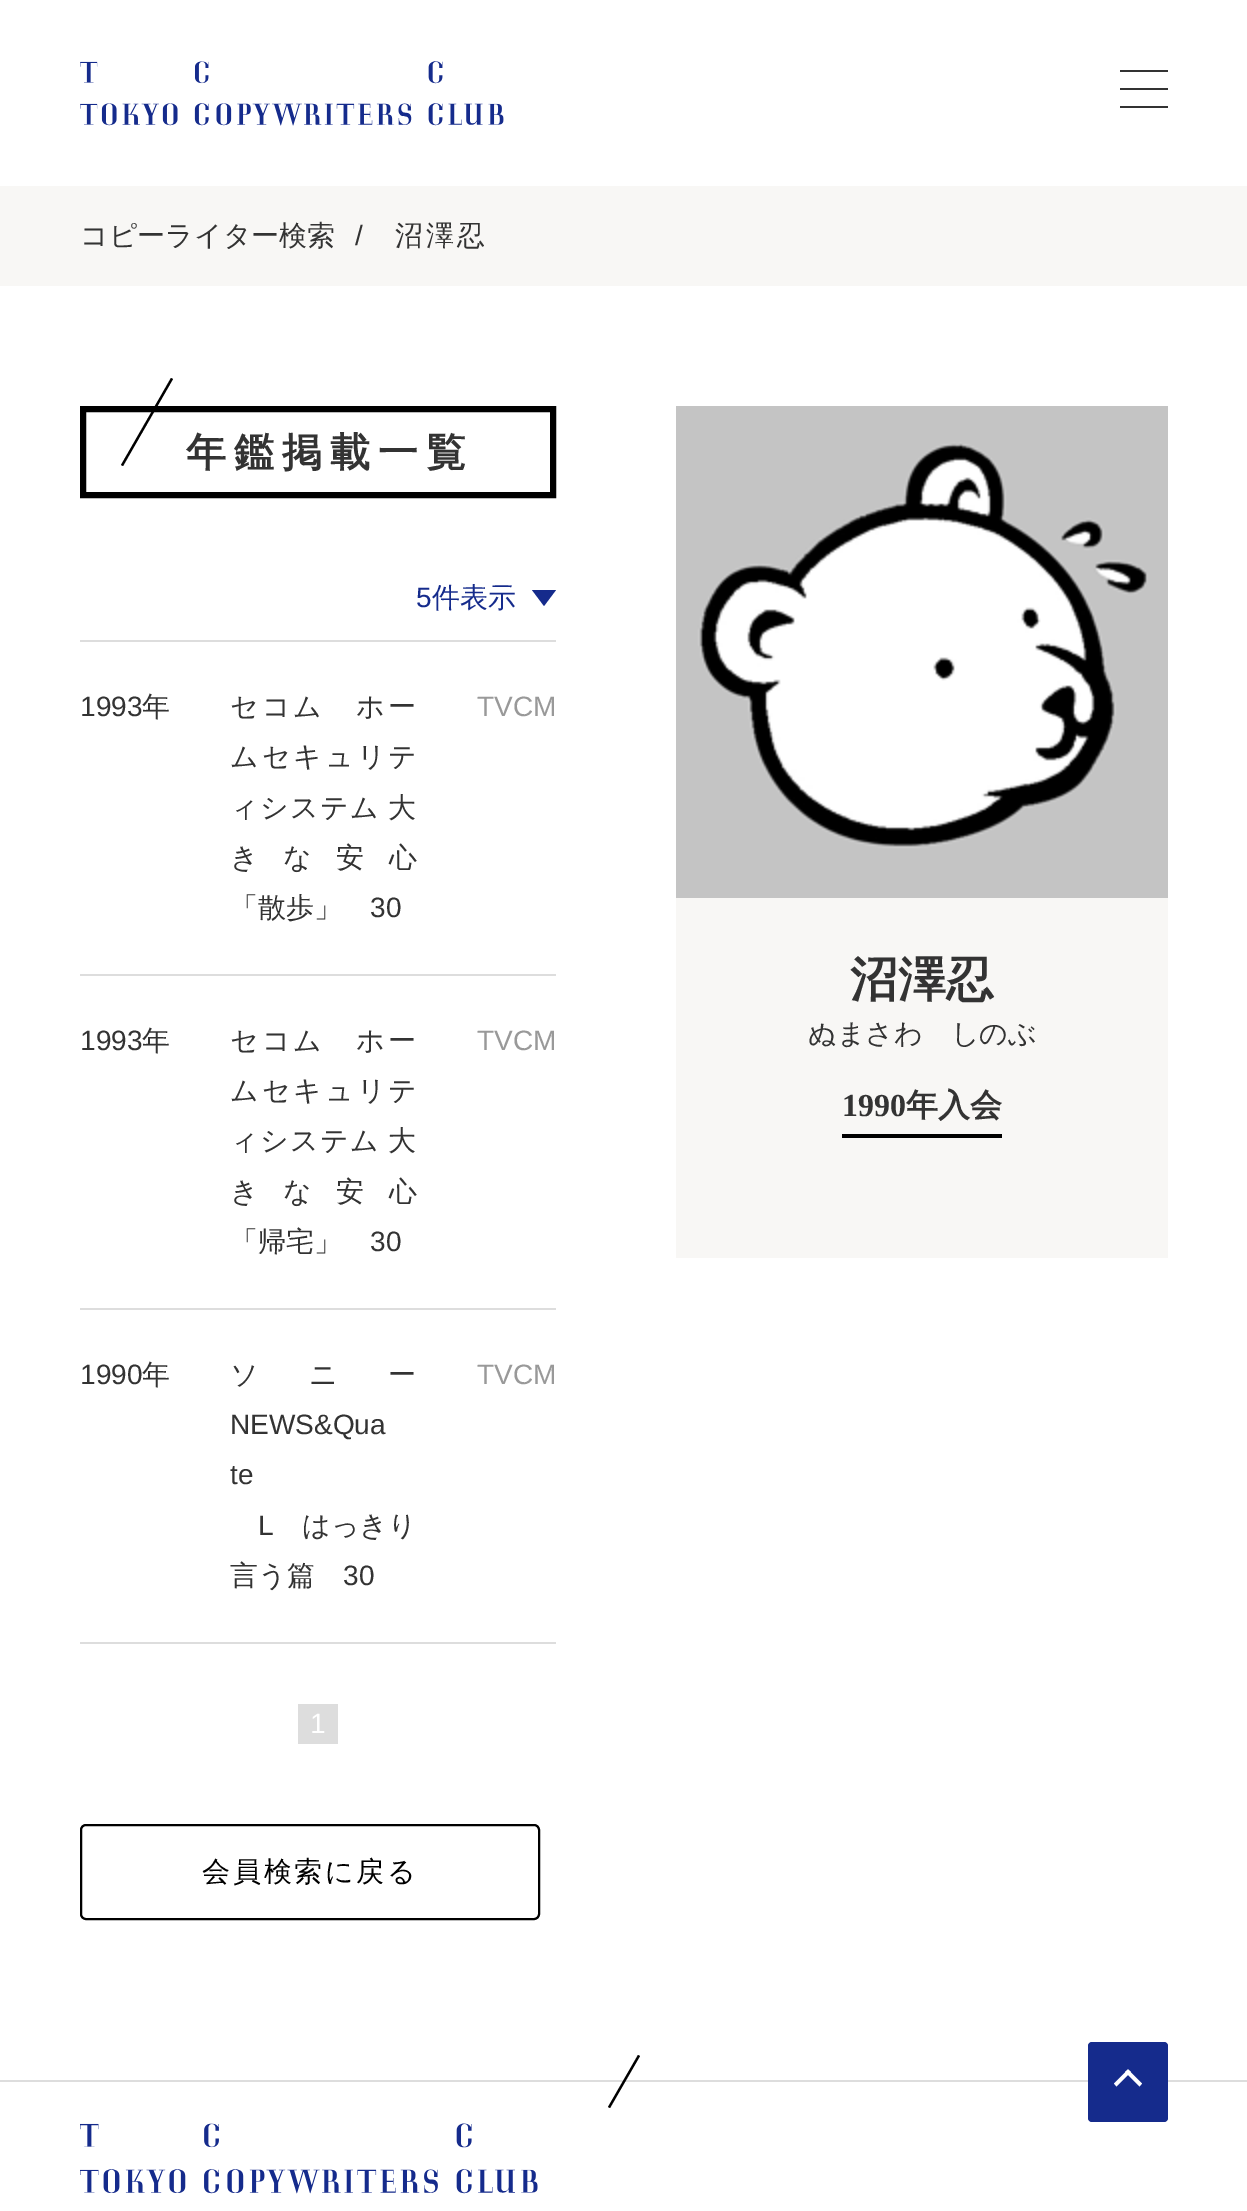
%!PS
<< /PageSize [1247 2211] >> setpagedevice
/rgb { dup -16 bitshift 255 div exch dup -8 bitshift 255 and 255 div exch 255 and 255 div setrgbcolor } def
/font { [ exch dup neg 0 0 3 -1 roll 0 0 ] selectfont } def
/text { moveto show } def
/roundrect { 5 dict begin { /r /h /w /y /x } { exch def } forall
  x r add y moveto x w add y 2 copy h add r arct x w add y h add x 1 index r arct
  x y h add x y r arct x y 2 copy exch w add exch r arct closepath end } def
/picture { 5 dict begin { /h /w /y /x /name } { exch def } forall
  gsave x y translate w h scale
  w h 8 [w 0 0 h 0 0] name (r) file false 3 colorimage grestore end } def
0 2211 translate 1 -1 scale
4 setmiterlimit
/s1 { /WenQuanYiZenHei-Medium 28 font 16#333333 rgb } def
/s2 { /LiberationSans-Regular 28 font 16#333333 rgb } def
/s3 { /LiberationSans-Regular 28 font 16#152B8C rgb } def
/s4 { /WenQuanYiZenHei-Medium 28 font 16#152B8C rgb } def
/s5 { /LiberationSans-Regular 28 font 16#999999 rgb } def
/s6 { /LiberationSans-Regular 28 font 16#FFFFFF rgb } def
/s7 { /WenQuanYiZenHei-Bold 48 font 16#333333 rgb } def
/s8 { /LiberationSerif-Bold 32 font 16#333333 rgb } def
/s9 { /WenQuanYiZenHei-Bold 32 font 16#333333 rgb } def
16#FFFFFF rgb
0 0 1247 2211 rectfill
(pic1.raw) 80 61 424 65 picture
16#333333 rgb
1120 70 48 2 rectfill
1120 88 48 2 rectfill
1120 106 48 2 rectfill
16#F8F7F5 rgb
0 186 1247 100 rectfill
s1
(コピーライター検索) 80 245 text
s2
(/) 355 245 text
/WenQuanYiZenHei-Medium 28 font
395 245 moveto 3 0 (沼澤忍) ashow
16#000000 rgb
6 setlinewidth
83 409 470 86 rectstroke
171 378 moveto 173 379 lineto 123 466 lineto 121 465 lineto closepath fill
/WenQuanYiZenHei-Bold 40 font
16#333333 rgb
186 466 moveto 8 0 (年鑑掲載一覧) ashow
s3
(5) 416 607 text
s4
(件表示) 432 607 text
532 590 moveto 556 590 lineto 544 606 lineto closepath fill
16#DDDDDD rgb
80 640 476 2 rectfill
80 974 476 2 rectfill
s2
(1993) 80 716 text
s1
(年) 142 716 text
230 716 moveto 3 0 (セコム　ホー) ashow
230 766 moveto 3 0 (ムセキュリテ) ashow
230 817 moveto -1 0 32 1.25 0 (ィシステム 大) awidthshow
230 867 moveto 24.5 0 (きな安心) ashow
(「散歩」) 230 917 text
s2
(30) 370 917 text
s5
(TVCM) 477 716 text
16#DDDDDD rgb
80 1308 476 2 rectfill
s2
(1993) 80 1050 text
s1
(年) 142 1050 text
230 1050 moveto 3 0 (セコム　ホー) ashow
230 1100 moveto 3 0 (ムセキュリテ) ashow
230 1150 moveto -1 0 32 1.25 0 (ィシステム 大) awidthshow
230 1201 moveto 24.5 0 (きな安心) ashow
(「帰宅」) 230 1251 text
s2
(30) 370 1251 text
s5
(TVCM) 477 1050 text
16#DDDDDD rgb
80 1642 476 2 rectfill
s2
(1990) 80 1384 text
s1
(年) 142 1384 text
230 1384 moveto 50.5 0 (ソニー) ashow
s2
(NEWS&Qua) 230 1434 text
(te) 230 1484 text
(L) 258 1535 text
s1
(はっきり) 302 1535 text
(言う篇) 230 1585 text
s2
(30) 343 1585 text
s5
(TVCM) 477 1384 text
16#DDDDDD rgb
298 1704 40 40 rectfill
s6
(1) 310 1733 text
16#000000 rgb
2 setlinewidth
81 1825 458 94 5 roundrect stroke
/WenQuanYiZenHei-Medium 28 font
202 1881 moveto 2.75 0 (会員検索に戻る) ashow
16#F8F7F5 rgb
676 898 492 360 rectfill
(pic2.raw) 676 406 492 492 picture
s7
(沼澤忍) 850 996 text
s1
(ぬまさわ　しのぶ) 808 1043 text
16#000000 rgb
842 1134 160 4 rectfill
s8
(1990) 842 1116 text
s9
(年入会) 906 1116 text
16#DDDDDD rgb
0 2080 1247 2 rectfill
16#152B8C rgb
1088 2042 80 80 4 roundrect fill
16#FFFFFF rgb
1128 2069.5 moveto 1142 2083.5 lineto 1139.5 2086.5 lineto 1125 2072 lineto closepath fill
1128 2069.5 moveto 1131 2072 lineto 1116.5 2086.5 lineto 1114 2083.5 lineto closepath fill
(pic3.raw) 80 2123 458 71 picture
16#000000 rgb
638 2055 moveto 640 2056 lineto 610 2108 lineto 608 2107 lineto closepath fill
showpage
